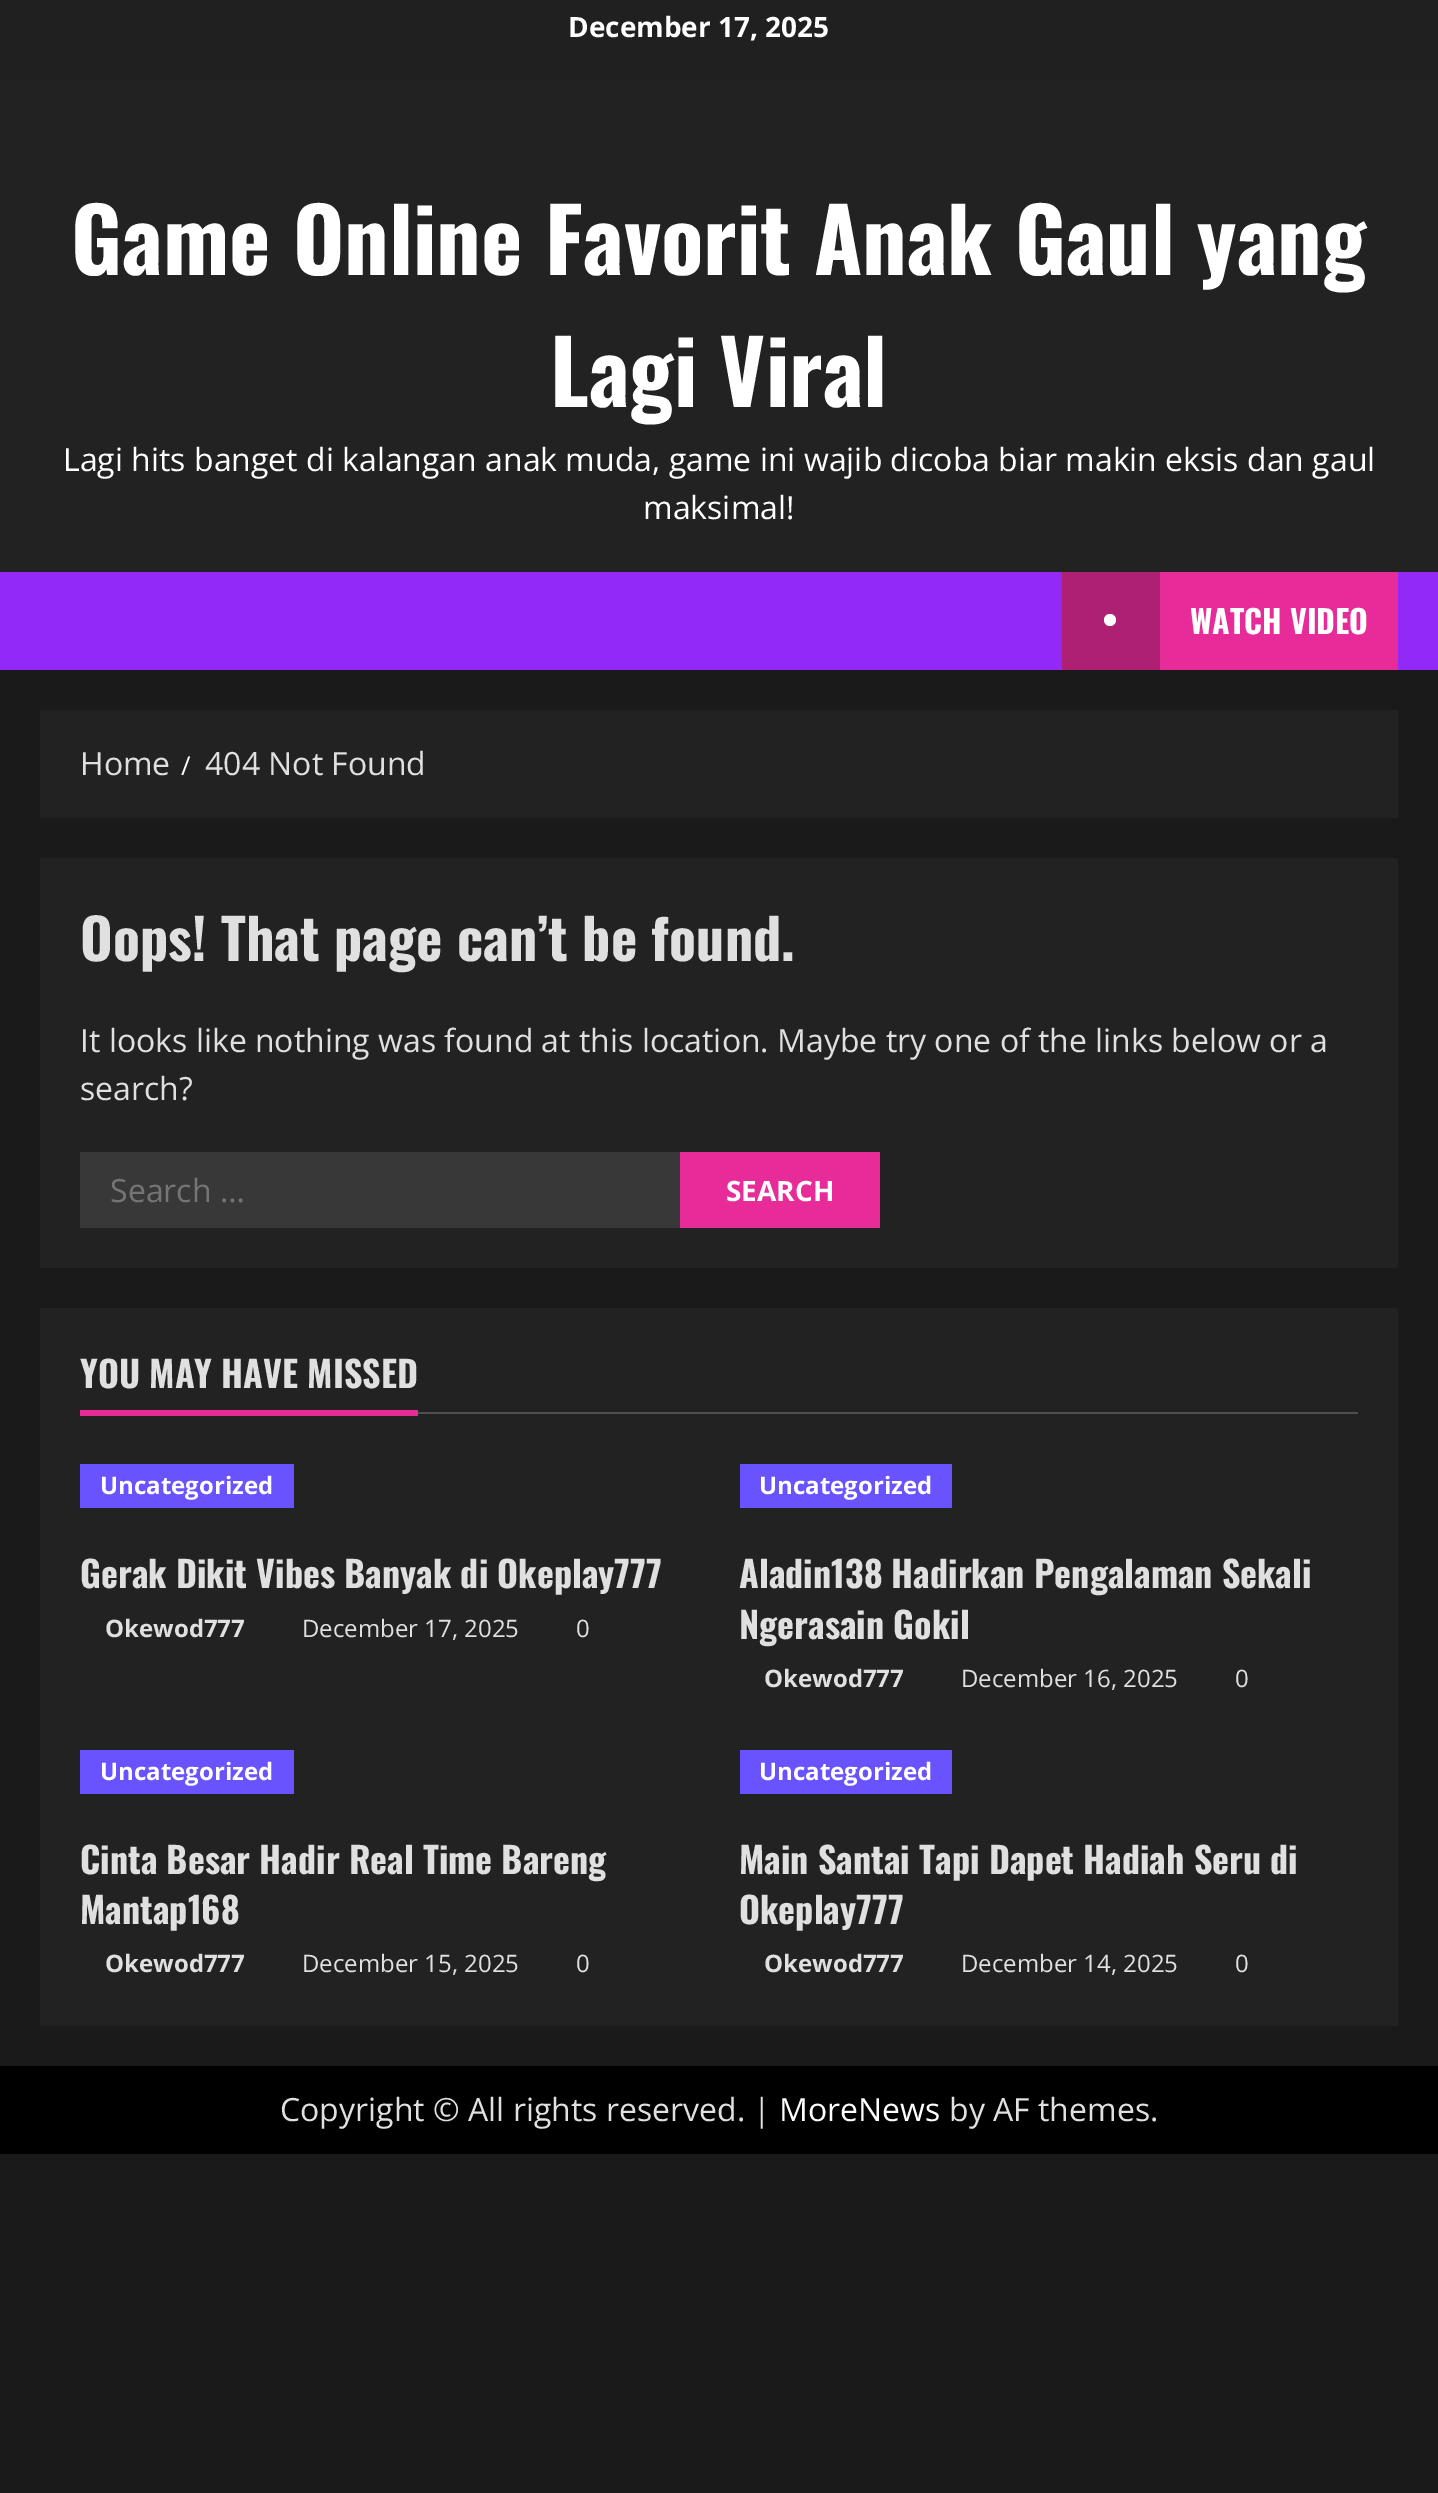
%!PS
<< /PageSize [1438 2493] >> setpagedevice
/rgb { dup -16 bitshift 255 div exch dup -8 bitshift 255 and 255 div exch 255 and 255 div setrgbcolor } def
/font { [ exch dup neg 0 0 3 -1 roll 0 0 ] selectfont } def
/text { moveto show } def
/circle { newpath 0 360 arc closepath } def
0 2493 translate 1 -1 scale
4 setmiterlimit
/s1 { /OpenSans-Bold 28 font 16#FFFFFF rgb } def
/s2 { /Oswald-Bold 88 font 16#FFFFFF rgb } def
/s3 { /OpenSans-Regular 32 font 16#FFFFFF rgb } def
/s4 { /Oswald-Bold 32 font 16#FFFFFF rgb } def
/s5 { /OpenSans-Regular 32 font 16#E0E0E0 rgb } def
/s6 { /OpenSans-Regular 26 font 16#FFFFFF rgb } def
/s7 { /Oswald-Bold 56 font 16#E0E0E0 rgb } def
/s8 { /OpenSans-Regular 32 font 16#757575 rgb } def
/s9 { /Oswald-Bold 36 font 16#E0E0E0 rgb } def
/s10 { /OpenSans-Bold 24 font 16#FFFFFF rgb } def
/s11 { /OpenSans-Bold 24 font 16#E0E0E0 rgb } def
/s12 { /OpenSans-Regular 24 font 16#E0E0E0 rgb } def
16#1A1A1A rgb
0 0 1438 2493 rectfill
16#202020 rgb
0 0 1438 80 rectfill
s1
(December 17, 2025) 568 37 text
16#222222 rgb
0 80 1438 492 rectfill
s2
(Game Online Favorit Anak Gaul yang) 71 275 text
(Lagi Viral) 550 407 text
s3
(Lagi hits banget di kalangan anak muda, game ini wajib dicoba biar makin eksis dan gaul) 63 471 text
(maksimal!) 643 519 text
16#9229F7 rgb
0 572 1438 98 rectfill
16#E72B99 rgb
1160 572 238 98 rectfill
16#AD2073 rgb
1062 572 98 98 rectfill
16#FFFFFF rgb
1110 620 6 circle fill
s4
(WATCH VIDEO) 1190 634 text
16#222222 rgb
40 710 1358 108 rectfill
s5
(Home) 80 775 text
s6
(/) 181 775 text
s5
(404 Not Found) 205 775 text
16#222222 rgb
40 858 1358 410 rectfill
s7
(Oops! That page can’t be found.) 80 961 text
s5
(It looks like nothing was found at this location. Maybe try one of the links below or a) 80 1052 text
(search?) 80 1100 text
16#383838 rgb
80 1152 600 76 rectfill
s8
(Search …) 110 1202 text
16#E72B99 rgb
680 1152 200 76 rectfill
s1
(SEARCH) 726 1201 text
16#222222 rgb
40 1308 1358 718 rectfill
16#4E4E4E rgb
418 1412 940 2 rectfill
s9
(YOU MAY HAVE MISSED) 80 1388 text
16#E72B99 rgb
80 1410 338 6 rectfill
16#6953FF rgb
80 1464 214 44 rectfill
s10
(Uncategorized) 100 1494 text
s9
(Gerak Dikit Vibes Banyak di Okeplay777) 80 1588 text
s11
(Okewod777) 105 1637 text
s12
(December 17, 2025) 302 1637 text
(0) 576 1637 text
16#6953FF rgb
740 1464 212 44 rectfill
s10
(Uncategorized) 759 1494 text
s9
(Aladin138 Hadirkan Pengalaman Sekali) 739 1588 text
(Ngerasain Gokil) 739 1639 text
s11
(Okewod777) 764 1687 text
s12
(December 16, 2025) 961 1687 text
(0) 1235 1687 text
16#6953FF rgb
80 1750 214 44 rectfill
s10
(Uncategorized) 100 1780 text
s9
(Cinta Besar Hadir Real Time Bareng) 80 1874 text
(Mantap168) 80 1924 text
s11
(Okewod777) 105 1972 text
s12
(December 15, 2025) 302 1972 text
(0) 576 1972 text
16#6953FF rgb
740 1750 212 44 rectfill
s10
(Uncategorized) 759 1780 text
s9
(Main Santai Tapi Dapet Hadiah Seru di) 739 1874 text
(Okeplay777) 739 1924 text
s11
(Okewod777) 764 1972 text
s12
(December 14, 2025) 961 1972 text
(0) 1235 1972 text
16#000000 rgb
0 2066 1438 88 rectfill
s5
(Copyright © All rights reserved. |) 280 2121 text
s3
(MoreNews) 779 2121 text
s5
(by AF themes.) 949 2121 text
showpage
